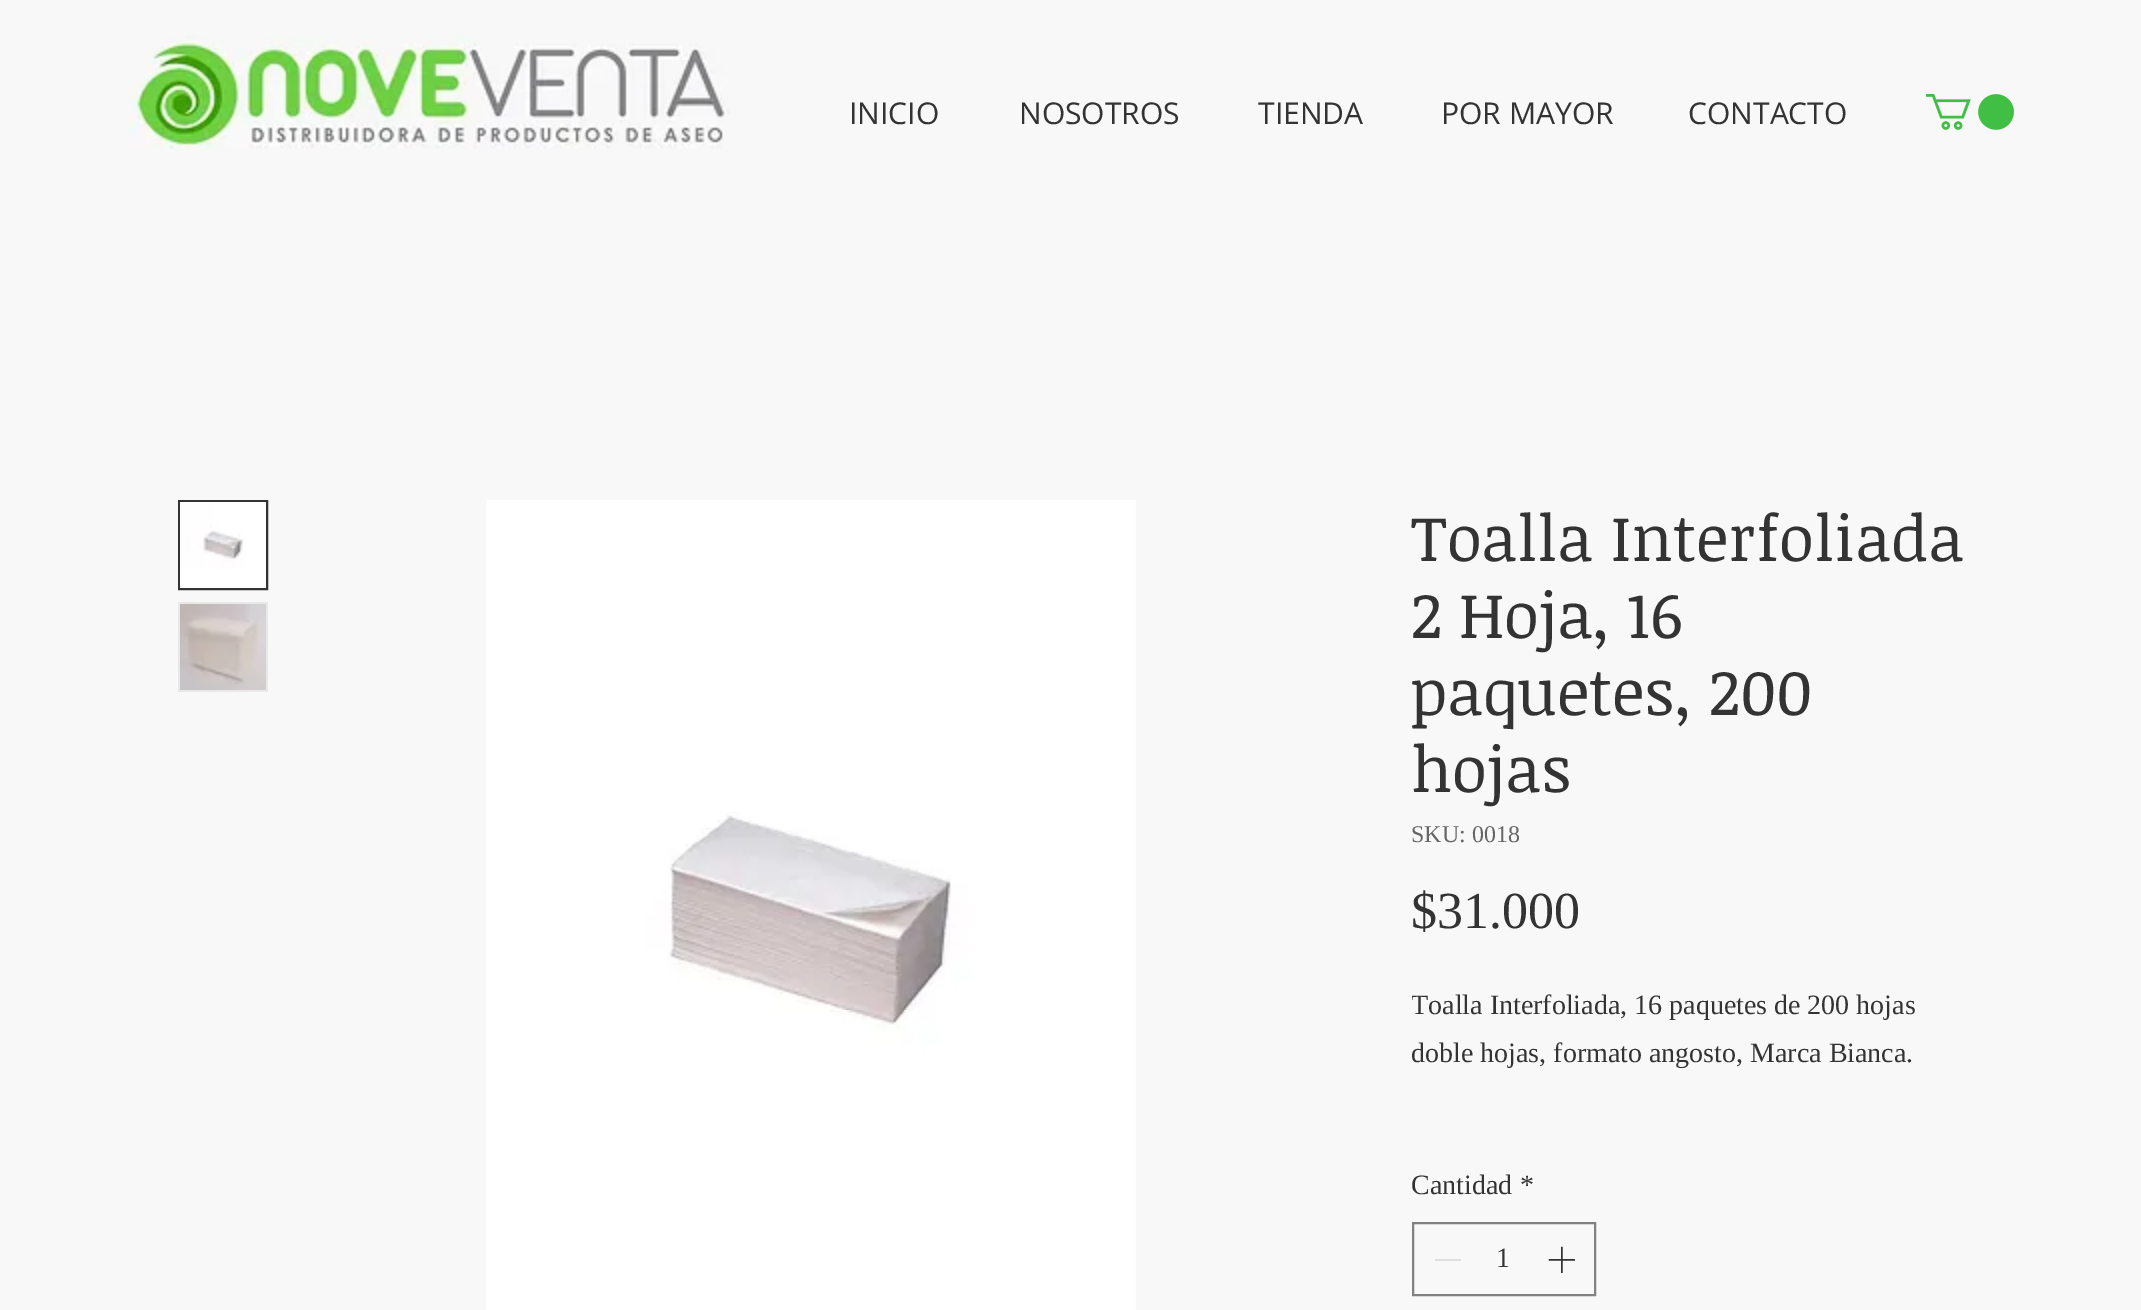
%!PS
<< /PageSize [2141 1310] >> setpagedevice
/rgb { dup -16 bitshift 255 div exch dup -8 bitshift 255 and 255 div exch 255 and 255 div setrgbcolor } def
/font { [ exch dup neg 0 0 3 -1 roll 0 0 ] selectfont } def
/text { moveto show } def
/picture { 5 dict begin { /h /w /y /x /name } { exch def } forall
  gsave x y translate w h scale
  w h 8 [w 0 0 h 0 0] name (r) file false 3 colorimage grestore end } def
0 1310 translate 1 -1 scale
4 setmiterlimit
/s1 { /OpenSans-Regular 30 font 16#333333 rgb } def
/s2 { /NoticiaText-Regular 64 font 16#333333 rgb } def
/s3 { /LiberationSerif-Regular 24 font 16#656565 rgb } def
/s4 { /LiberationSerif-Regular 52 font 16#333333 rgb } def
/s5 { /LiberationSerif-Regular 28 font 16#333333 rgb } def
16#F8F8F8 rgb
0 0 2141 1310 rectfill
(pic1.raw) 130 35 600 114 picture
s1
(INICIO) 849 124 text
(NOSOTROS) 1019 124 text
(TIENDA) 1258 124 text
(POR MAYOR) 1441 124 text
(CONTACTO) 1688 124 text
(pic2.raw) 1926 94 88 36 picture
2 setlinewidth
179 501 88 88 rectstroke
(pic3.raw) 180 502 86 86 picture
16#E8E8E8 rgb
178 602 90 90 rectfill
(pic4.raw) 180 604 86 86 picture
(pic5.raw) 486 500 650 810 picture
s2
(Toalla Interfoliada) 1411 561 text
(2 Hoja, 16) 1411 638 text
(paquetes, 200) 1411 715 text
(hojas) 1411 792 text
s3
(SKU: 0018) 1411 842 text
s4
($31.000) 1411 928 text
gsave
1412 982 560 144 rectclip
s5
(Toalla Interfoliada, 16 paquetes de 200 hojas) 1411 1014 text
grestore
s5
(doble hojas, formato angosto, Marca Bianca.) 1411 1062 text
(Cantidad) 1411 1194 text
(*) 1520 1194 text
16#828282 rgb
1413 1223 182 72 rectstroke
16#E0E0E0 rgb
1435 1259 26 2 rectfill
s5
(1) 1496 1267 text
(pic6.raw) 1548 1246 27 27 picture
showpage
